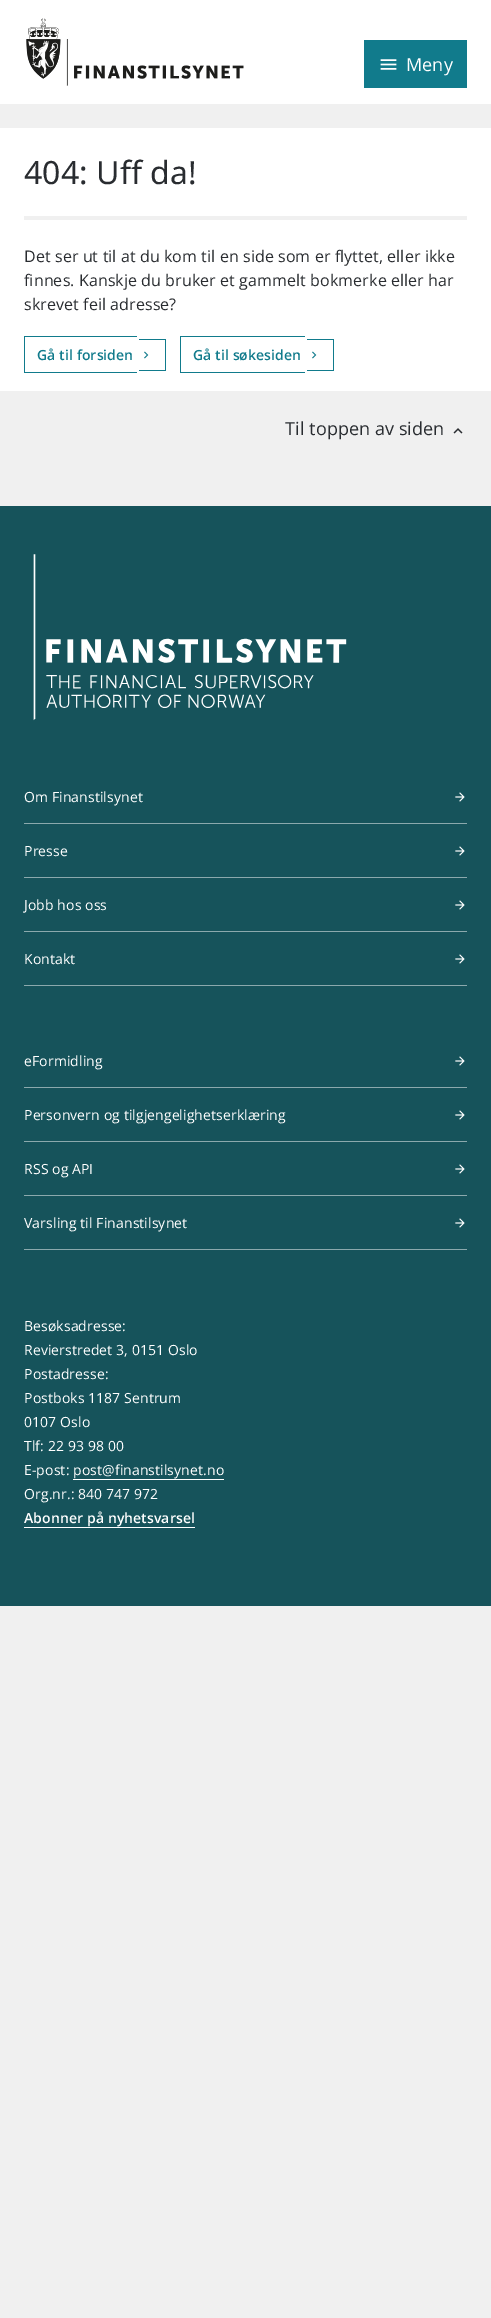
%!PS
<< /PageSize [491 2318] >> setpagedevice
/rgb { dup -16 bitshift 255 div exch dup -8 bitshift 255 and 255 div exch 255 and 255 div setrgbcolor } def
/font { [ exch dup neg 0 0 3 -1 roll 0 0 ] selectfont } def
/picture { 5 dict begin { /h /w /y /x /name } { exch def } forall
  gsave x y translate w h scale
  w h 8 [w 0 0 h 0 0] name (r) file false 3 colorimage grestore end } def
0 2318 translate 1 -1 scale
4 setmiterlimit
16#F0F0F0 rgb
0 0 491 2318 rectfill
16#FFFFFF rgb
0 0 491 104 rectfill
(pic1.raw) 26 18 218 68 picture
16#117B8C rgb
364 40 103 48 rectfill
(pic2.raw) 380 59 17 11 picture
/OpenSans-Regular 18 font
16#FFFFFF rgb
406 71 moveto 0.1 0 (Meny) ashow
0 128 491 263 rectfill
/NotoSans-Regular 32 font
16#292C30 rgb
24 184 moveto 0.1 0 (404: Uff da!) ashow
16#F0F0F0 rgb
24 216 443 4 rectfill
/OpenSans-Regular 16 font
16#292C30 rgb
24 262 moveto 0.1 0 (Det ser ut til at du kom til en side som er flyttet, eller ikke) ashow
24 286 moveto 0.1 0 (finnes. Kanskje du bruker et gammelt bokmerke eller har) ashow
24 310 moveto 0.1 0 (skrevet feil adresse?) ashow
16#117B8C rgb
24 336 113 1 rectfill
24 372 113 1 rectfill
24 336 1 37 rectfill
139 339 27 1 rectfill
165 339 1 32 rectfill
139 370 27 1 rectfill
/OpenSans-SemiBold 14 font
37 360 moveto 0.1 0 (Gå til forsiden) ashow
(pic3.raw) 144 351 5 8 picture
180 336 125 1 rectfill
180 372 125 1 rectfill
180 336 1 37 rectfill
307 339 27 1 rectfill
333 339 1 32 rectfill
307 370 27 1 rectfill
193 360 moveto 0.1 0 (Gå til søkesiden) ashow
(pic3.raw) 312 351 5 8 picture
/OpenSans-Regular 18 font
16#292C30 rgb
285 435 moveto 0.1 0 (Til toppen av siden) ashow
(pic4.raw) 453 428 10 6 picture
16#16535B rgb
0 506 491 1100 rectfill
(pic5.raw) 33 554 314 167 picture
16#8BA9AD rgb
24 823 443 1 rectfill
/OpenSans-Regular 14 font
16#FFFFFF rgb
24 802 moveto 0.1 0 (Om Finanstilsynet) ashow
(pic6.raw) 455 792 10 10 picture
16#8BA9AD rgb
24 877 443 1 rectfill
16#FFFFFF rgb
24 856 moveto 0.1 0 (Presse) ashow
(pic6.raw) 455 846 10 10 picture
16#8BA9AD rgb
24 931 443 1 rectfill
16#FFFFFF rgb
24 910 moveto 0.1 0 (Jobb hos oss) ashow
(pic6.raw) 455 900 10 10 picture
16#8BA9AD rgb
24 985 443 1 rectfill
16#FFFFFF rgb
24 964 moveto 0.1 0 (Kontakt) ashow
(pic6.raw) 455 954 10 10 picture
16#8BA9AD rgb
24 1087 443 1 rectfill
16#FFFFFF rgb
24 1066 moveto 0.1 0 (eFormidling) ashow
(pic6.raw) 455 1056 10 10 picture
16#8BA9AD rgb
24 1141 443 1 rectfill
16#FFFFFF rgb
24 1120 moveto 0.1 0 (Personvern og tilgjengelighetserklæring) ashow
(pic6.raw) 455 1110 10 10 picture
16#8BA9AD rgb
24 1195 443 1 rectfill
16#FFFFFF rgb
24 1174 moveto 0.1 0 (RSS og API) ashow
(pic6.raw) 455 1164 10 10 picture
16#8BA9AD rgb
24 1249 443 1 rectfill
16#FFFFFF rgb
24 1228 moveto 0.1 0 (Varsling til Finanstilsynet) ashow
(pic6.raw) 455 1218 10 10 picture
24 1331 moveto 0.1 0 (Besøksadresse:) ashow
24 1355 moveto 0.1 0 (Revierstredet 3, 0151 Oslo) ashow
24 1379 moveto 0.1 0 (Postadresse:) ashow
24 1403 moveto 0.1 0 (Postboks 1187 Sentrum) ashow
24 1427 moveto 0.1 0 (0107 Oslo) ashow
24 1451 moveto 0.1 0 (Tlf: 22 93 98 00) ashow
24 1475 moveto 0.1 0 (E-post: post@finanstilsynet.no) ashow
73 1479 151 1 rectfill
24 1499 moveto 0.1 0 (Org.nr.: 840 747 972) ashow
/OpenSans-SemiBold 14 font
24 1523 moveto 0.1 0 (Abonner på nyhetsvarsel) ashow
24 1527 171 1 rectfill
showpage
